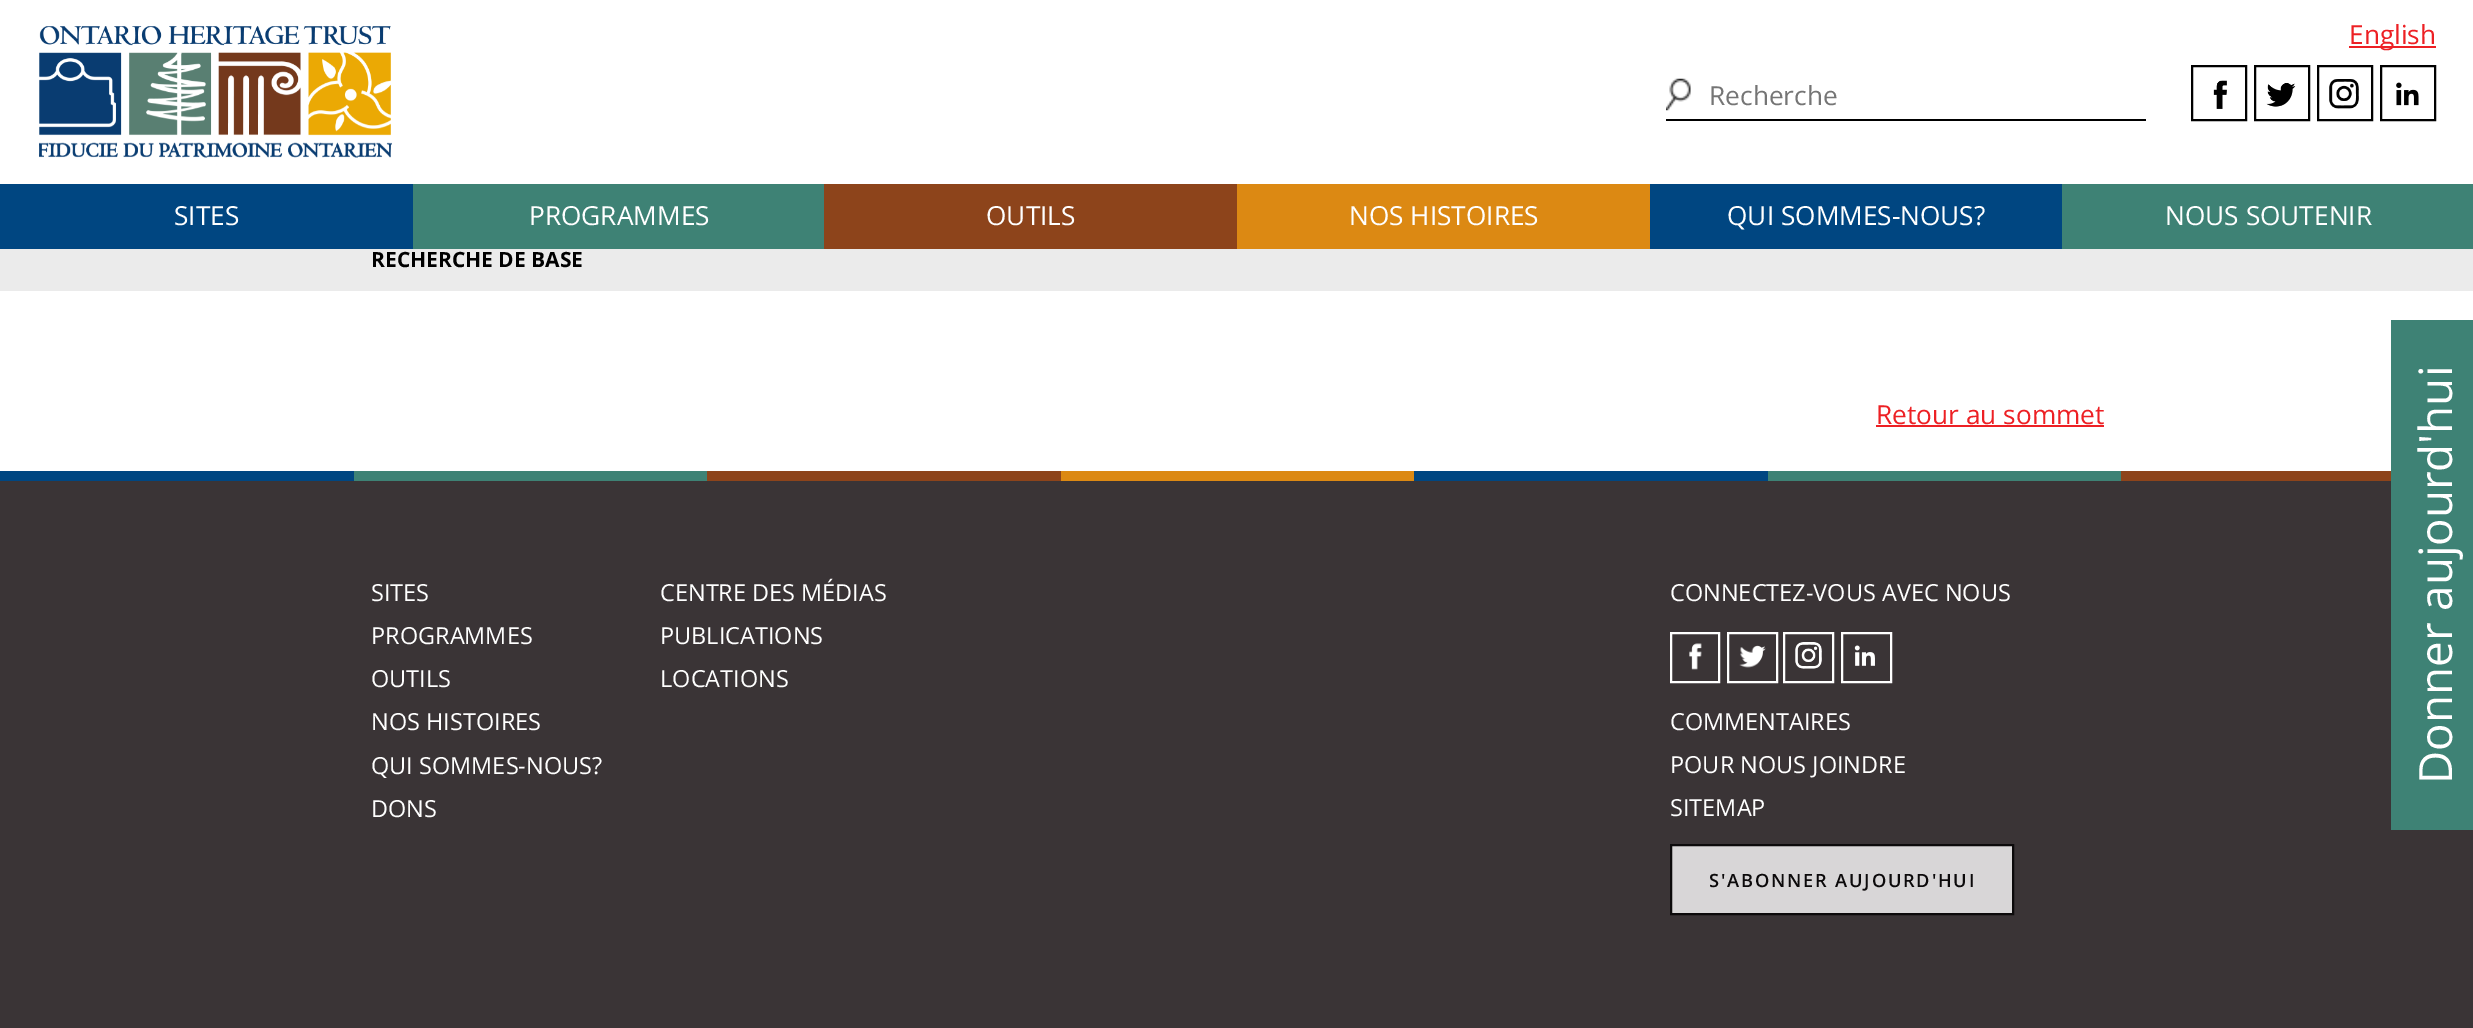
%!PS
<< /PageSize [2473 1028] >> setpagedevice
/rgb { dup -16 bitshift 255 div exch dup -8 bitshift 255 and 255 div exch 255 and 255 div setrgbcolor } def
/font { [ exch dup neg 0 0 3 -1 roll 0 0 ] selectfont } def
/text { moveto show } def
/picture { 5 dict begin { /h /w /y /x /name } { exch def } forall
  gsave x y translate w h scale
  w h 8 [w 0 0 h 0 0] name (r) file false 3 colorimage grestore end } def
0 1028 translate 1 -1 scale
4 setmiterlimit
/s1 { /OpenSans-Regular 26.25 font 16#ED2024 rgb } def
/s2 { /OpenSans-Regular 26.25 font 16#757575 rgb } def
/s3 { /OpenSans-Regular 26.25 font 16#FFFFFF rgb } def
/s4 { /OpenSans-Bold 21 font 16#000000 rgb } def
/s5 { /OpenSans-Regular 23.5 font 16#FFFFFF rgb } def
16#FFFFFF rgb
0 0 2473 1028 rectfill
16#ED2024 rgb
2349 46 87 2 rectfill
s1
(English) 2349 44 text
(pic1.raw) 1666 78 25 33 picture
16#000000 rgb
1666 119 480 2 rectfill
s2
(Recherche) 1709 105 text
16#000000 rgb
2 setlinewidth
2192 66 54 54 rectstroke
(pic2.raw) 2213 80 14 29 picture
2255 66 54 54 rectstroke
(pic3.raw) 2266 83 30 24 picture
2318 66 54 54 rectstroke
(pic4.raw) 2329 79 30 30 picture
2381 66 54 54 rectstroke
(pic5.raw) 2396 82 23 24 picture
16#004681 rgb
0 184 413 65 rectfill
s3
(SITES) 174 225 text
16#3E8275 rgb
413 184 411 65 rectfill
s3
(PROGRAMMES) 529 225 text
16#8D441B rgb
824 184 413 65 rectfill
s3
(OUTILS) 986 225 text
16#DC8913 rgb
1237 184 413 65 rectfill
s3
(NOS HISTOIRES) 1349 225 text
16#004681 rgb
1650 184 412 65 rectfill
s3
(QUI SOMMES-NOUS?) 1727 225 text
16#3E8275 rgb
2062 184 411 65 rectfill
s3
(NOUS SOUTENIR) 2165 225 text
(pic6.raw) 39 26 353 132 picture
16#EBEBEB rgb
0 249 2473 42 rectfill
s4
(RECHERCHE DE BASE) 371 267 text
s1
(Retour au sommet) 1876 424 text
1876 425 228 2 rectfill
16#3A3436 rgb
0 481 2473 547 rectfill
16#004681 rgb
0 471 354 10 rectfill
16#3E8275 rgb
354 471 353 10 rectfill
16#8D441B rgb
707 471 354 10 rectfill
16#DC8913 rgb
1061 471 353 10 rectfill
16#004681 rgb
1414 471 354 10 rectfill
16#3E8275 rgb
1768 471 353 10 rectfill
16#8D441B rgb
2121 471 270 10 rectfill
s5
(SITES) 371 601 text
(PROGRAMMES) 371 644 text
(OUTILS) 371 687 text
(NOS HISTOIRES) 371 730 text
(QUI SOMMES-NOUS?) 371 774 text
(DONS) 371 817 text
(CENTRE DES MÉDIAS) 660 601 text
(PUBLICATIONS) 660 644 text
(LOCATIONS) 660 687 text
(CONNECTEZ-VOUS AVEC NOUS) 1670 601 text
1671 633 48 49 rectstroke
(pic7.raw) 1689 643 13 27 picture
1728 633 49 49 rectstroke
(pic8.raw) 1739 645 27 23 picture
1784 633 49 49 rectstroke
(pic9.raw) 1795 642 27 27 picture
1842 633 49 49 rectstroke
(pic10.raw) 1854 645 21 21 picture
(COMMENTAIRES) 1670 730 text
(POUR NOUS JOINDRE) 1670 773 text
(SITEMAP) 1670 816 text
16#D8D6D7 rgb
1671 845 moveto 2013 845 lineto 2013 914 lineto 1671 914 lineto closepath gsave fill grestore
16#0C0A0B rgb
stroke
/OpenSans-SemiBold 18.25 font
1709 887 moveto 1.8 0 (S'ABONNER AUJOURD'HUI) ashow
16#3E8275 rgb
2391 320 82 510 rectfill
/OpenSans-Regular 45.75 font
16#FFFFFF rgb
gsave 2452 784 translate -90 rotate 0 0 moveto (Donner aujourd'hui) show grestore
showpage
